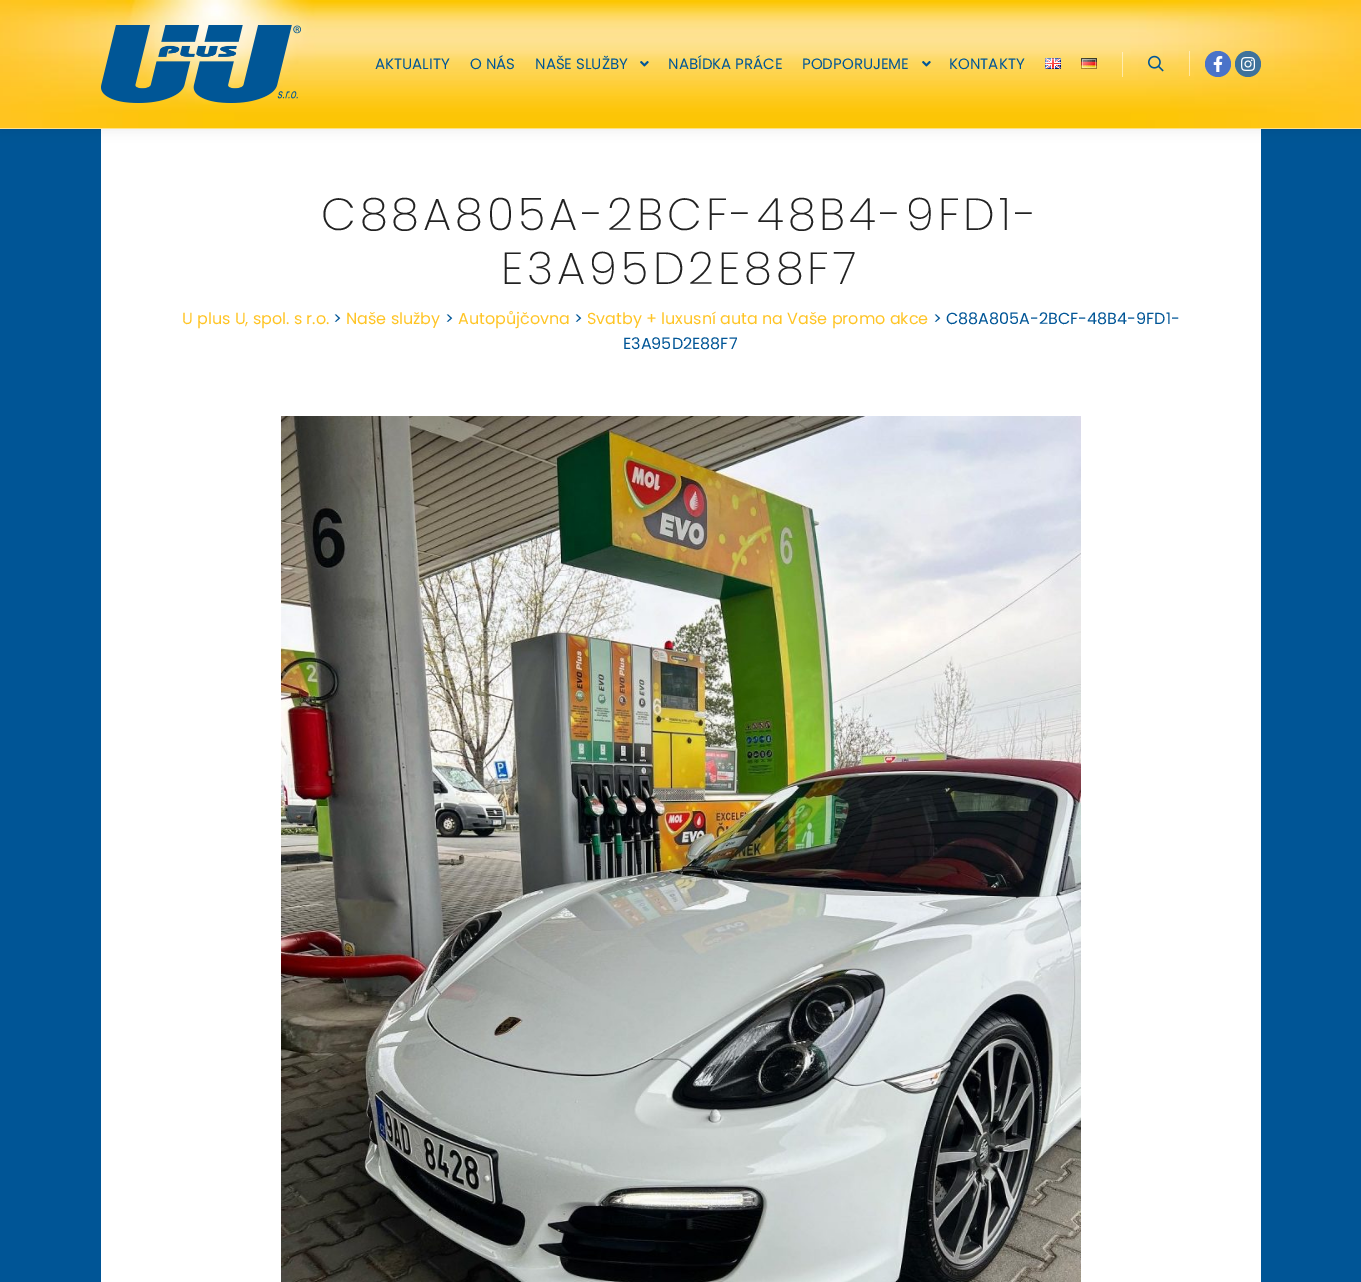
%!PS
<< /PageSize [1361 1282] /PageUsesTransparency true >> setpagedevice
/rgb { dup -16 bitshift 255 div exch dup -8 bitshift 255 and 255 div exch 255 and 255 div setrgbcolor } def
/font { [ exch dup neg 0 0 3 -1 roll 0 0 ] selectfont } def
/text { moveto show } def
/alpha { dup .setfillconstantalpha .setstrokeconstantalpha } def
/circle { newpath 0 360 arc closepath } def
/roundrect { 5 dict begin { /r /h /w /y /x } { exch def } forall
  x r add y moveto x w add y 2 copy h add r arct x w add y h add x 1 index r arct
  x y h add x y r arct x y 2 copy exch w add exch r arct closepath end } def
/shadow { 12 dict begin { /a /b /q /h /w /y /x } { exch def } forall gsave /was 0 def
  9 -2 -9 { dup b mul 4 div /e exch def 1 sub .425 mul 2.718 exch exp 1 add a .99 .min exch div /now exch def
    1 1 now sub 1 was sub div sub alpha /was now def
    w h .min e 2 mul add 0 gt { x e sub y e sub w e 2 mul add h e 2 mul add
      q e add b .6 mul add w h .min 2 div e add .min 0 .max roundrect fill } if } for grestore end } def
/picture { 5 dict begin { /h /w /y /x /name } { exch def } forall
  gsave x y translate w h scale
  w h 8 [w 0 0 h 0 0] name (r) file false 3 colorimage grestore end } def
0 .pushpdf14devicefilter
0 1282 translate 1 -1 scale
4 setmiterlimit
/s1 { /Poppins-Regular 15 font 16#005596 rgb } def
/s2 { /Poppins-Regular 16 font 16#FFC425 rgb } def
/s3 { /Poppins-Regular 16 font 16#005596 rgb } def
16#005596 rgb
0 0 1361 1282 rectfill
16#FFFFFF rgb
101 129 1160 1153 rectfill
16#000000 rgb
0 0 1361 129 0 6 0.09 shadow
(pic1.raw) 0 0 1361 129 picture
0.5 alpha
16#FFFFFF rgb
0 128 1361 1 rectfill
1 alpha
(pic2.raw) 101 25 200 78 picture
s1
(AKTUALITY) 375 69 text
(O NÁS) 470 69 text
(NAŠE SLUŽBY) 535 69 text
(pic3.raw) 640 61 9 6 picture
(NABÍDKA PRÁCE) 668 69 text
(PODPORUJEME) 802 69 text
(pic3.raw) 922 61 9 6 picture
(KONTAKTY) 949 69 text
(pic4.raw) 1045 58 16 11 picture
(pic5.raw) 1081 58 16 11 picture
0.5 alpha
16#FFFFFF rgb
1122 52 1 25 rectfill
1 alpha
(pic6.raw) 1148 55 16 17 picture
0.5 alpha
1189 51 1 25 rectfill
1 alpha
16#4A73C9 rgb
1218 64 13 circle fill
(pic7.raw) 1213 56 10 16 picture
16#3F729B rgb
1248 64 13 circle fill
(pic8.raw) 1241 57 14 14 picture
/Poppins-ExtraLight 45 font
16#222222 rgb
321 230 moveto 4 0 (C88A805A-2BCF-48B4-9FD1-) ashow
501 284 moveto 4 0 (E3A95D2E88F7) ashow
s2
(U plus U, spol. s r.o.) 182 324 text
s3
(>) 333 324 text
s2
(Naše služby) 346 324 text
s3
(>) 445 324 text
s2
(Autopůjčovna) 458 324 text
s3
(>) 574 324 text
s2
(Svatby + luxusní auta na Vaše promo akce) 587 324 text
s3
(> C88A805A-2BCF-48B4-9FD1-) 933 324 text
(E3A95D2E88F7) 623 349 text
(pic9.raw) 281 416 800 866 picture
.poppdf14devicefilter showpage
